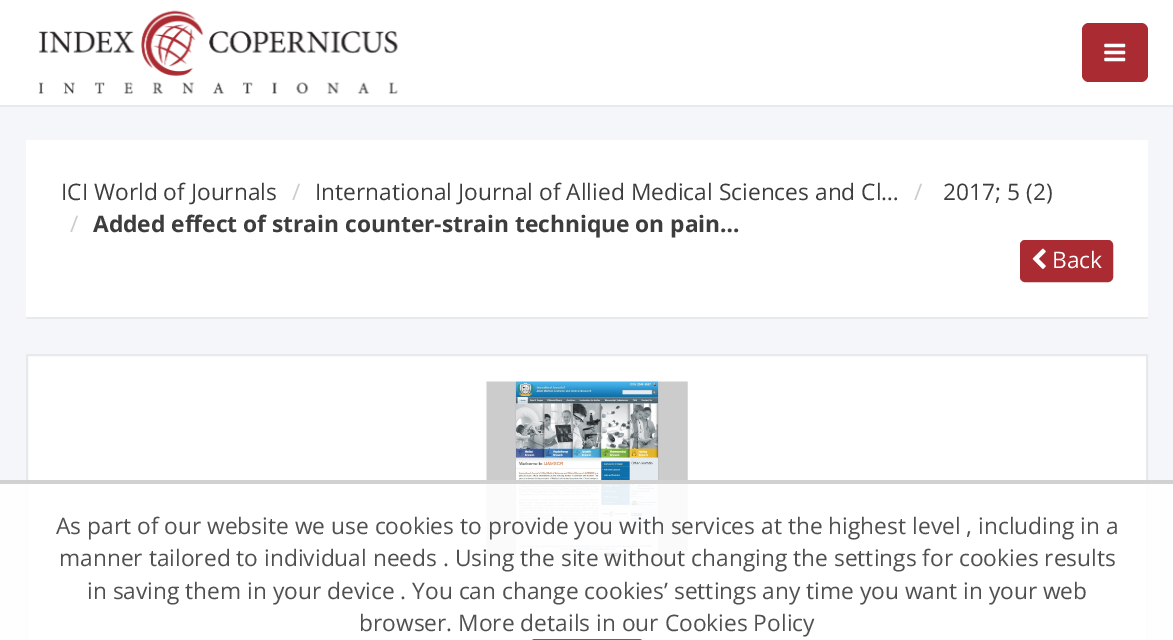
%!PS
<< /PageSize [1173 640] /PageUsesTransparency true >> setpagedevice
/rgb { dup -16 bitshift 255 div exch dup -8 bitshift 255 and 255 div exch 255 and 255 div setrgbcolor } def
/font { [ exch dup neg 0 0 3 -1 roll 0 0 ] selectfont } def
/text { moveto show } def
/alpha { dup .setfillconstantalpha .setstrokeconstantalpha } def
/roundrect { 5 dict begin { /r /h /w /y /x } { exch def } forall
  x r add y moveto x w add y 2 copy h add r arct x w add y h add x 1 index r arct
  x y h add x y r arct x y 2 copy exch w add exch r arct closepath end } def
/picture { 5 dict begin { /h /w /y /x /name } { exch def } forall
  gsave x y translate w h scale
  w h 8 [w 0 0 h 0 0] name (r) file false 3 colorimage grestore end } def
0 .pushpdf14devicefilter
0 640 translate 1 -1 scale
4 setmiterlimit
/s1 { /OpenSans-Regular 22.75 font 16#3D3D3D rgb } def
/s2 { /OpenSans-Regular 22.75 font 16#CCCCCC rgb } def
/s3 { /OpenSans-Bold 22.75 font 16#3D3D3D rgb } def
/s4 { /OpenSans-Regular 22.75 font 16#FFFFFF rgb } def
/s5 { /OpenSans-Regular 22.75 font 16#505050 rgb } def
16#F4F6FA rgb
0 0 1173 640 rectfill
16#FFFFFF rgb
0 0 1173 105 rectfill
16#E7EAEC rgb
0 105 1173 2 rectfill
(pic1.raw) 38 10 360 84 picture
16#AA2B31 rgb
1082 23 66 59 7 roundrect fill
(pic2.raw) 1104 43 22 19 picture
16#FFFFFF rgb
26 140 1122 177 rectfill
16#E7EAEC rgb
26 317 1122 2 rectfill
s1
(ICI World of Journals) 61 200 text
s2
(/) 292 200 text
s1
(International Journal of Allied Medical Sciences and Cl…) 315 200 text
s2
(/) 914 200 text
s1
(2017; 5 \(2\)) 943 200 text
s2
(/) 70 232 text
s3
(Added effect of strain counter-strain technique on pain…) 93 232 text
16#AA2B31 rgb
1021 241 91 40 4 roundrect gsave fill grestore
2 setlinewidth
stroke
(pic3.raw) 1032 248 14 21 picture
s4
(Back) 1052 268 text
27 355 moveto 1147 355 lineto 1147 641 lineto 27 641 lineto closepath gsave fill grestore
16#E7EAEC rgb
stroke
(pic4.raw) 486 381 202 176 picture
0.9 alpha
16#FFFFFF rgb
0 480 1173 160 rectfill
16#CCCCCC rgb
0 480 1173 4 rectfill
1 alpha
s5
(As part of our website we use cookies to provide you with services at the highest level , including in a) 56 534 text
(manner tailored to individual needs . Using the site without changing the settings for cookies results) 59 566 text
(in saving them in your device . You can change cookies’ settings any time you want in your web) 87 599 text
(browser. More details in our Cookies Policy) 359 631 text
16#B34046 rgb
530 639 114 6 5 roundrect fill
.poppdf14devicefilter showpage
